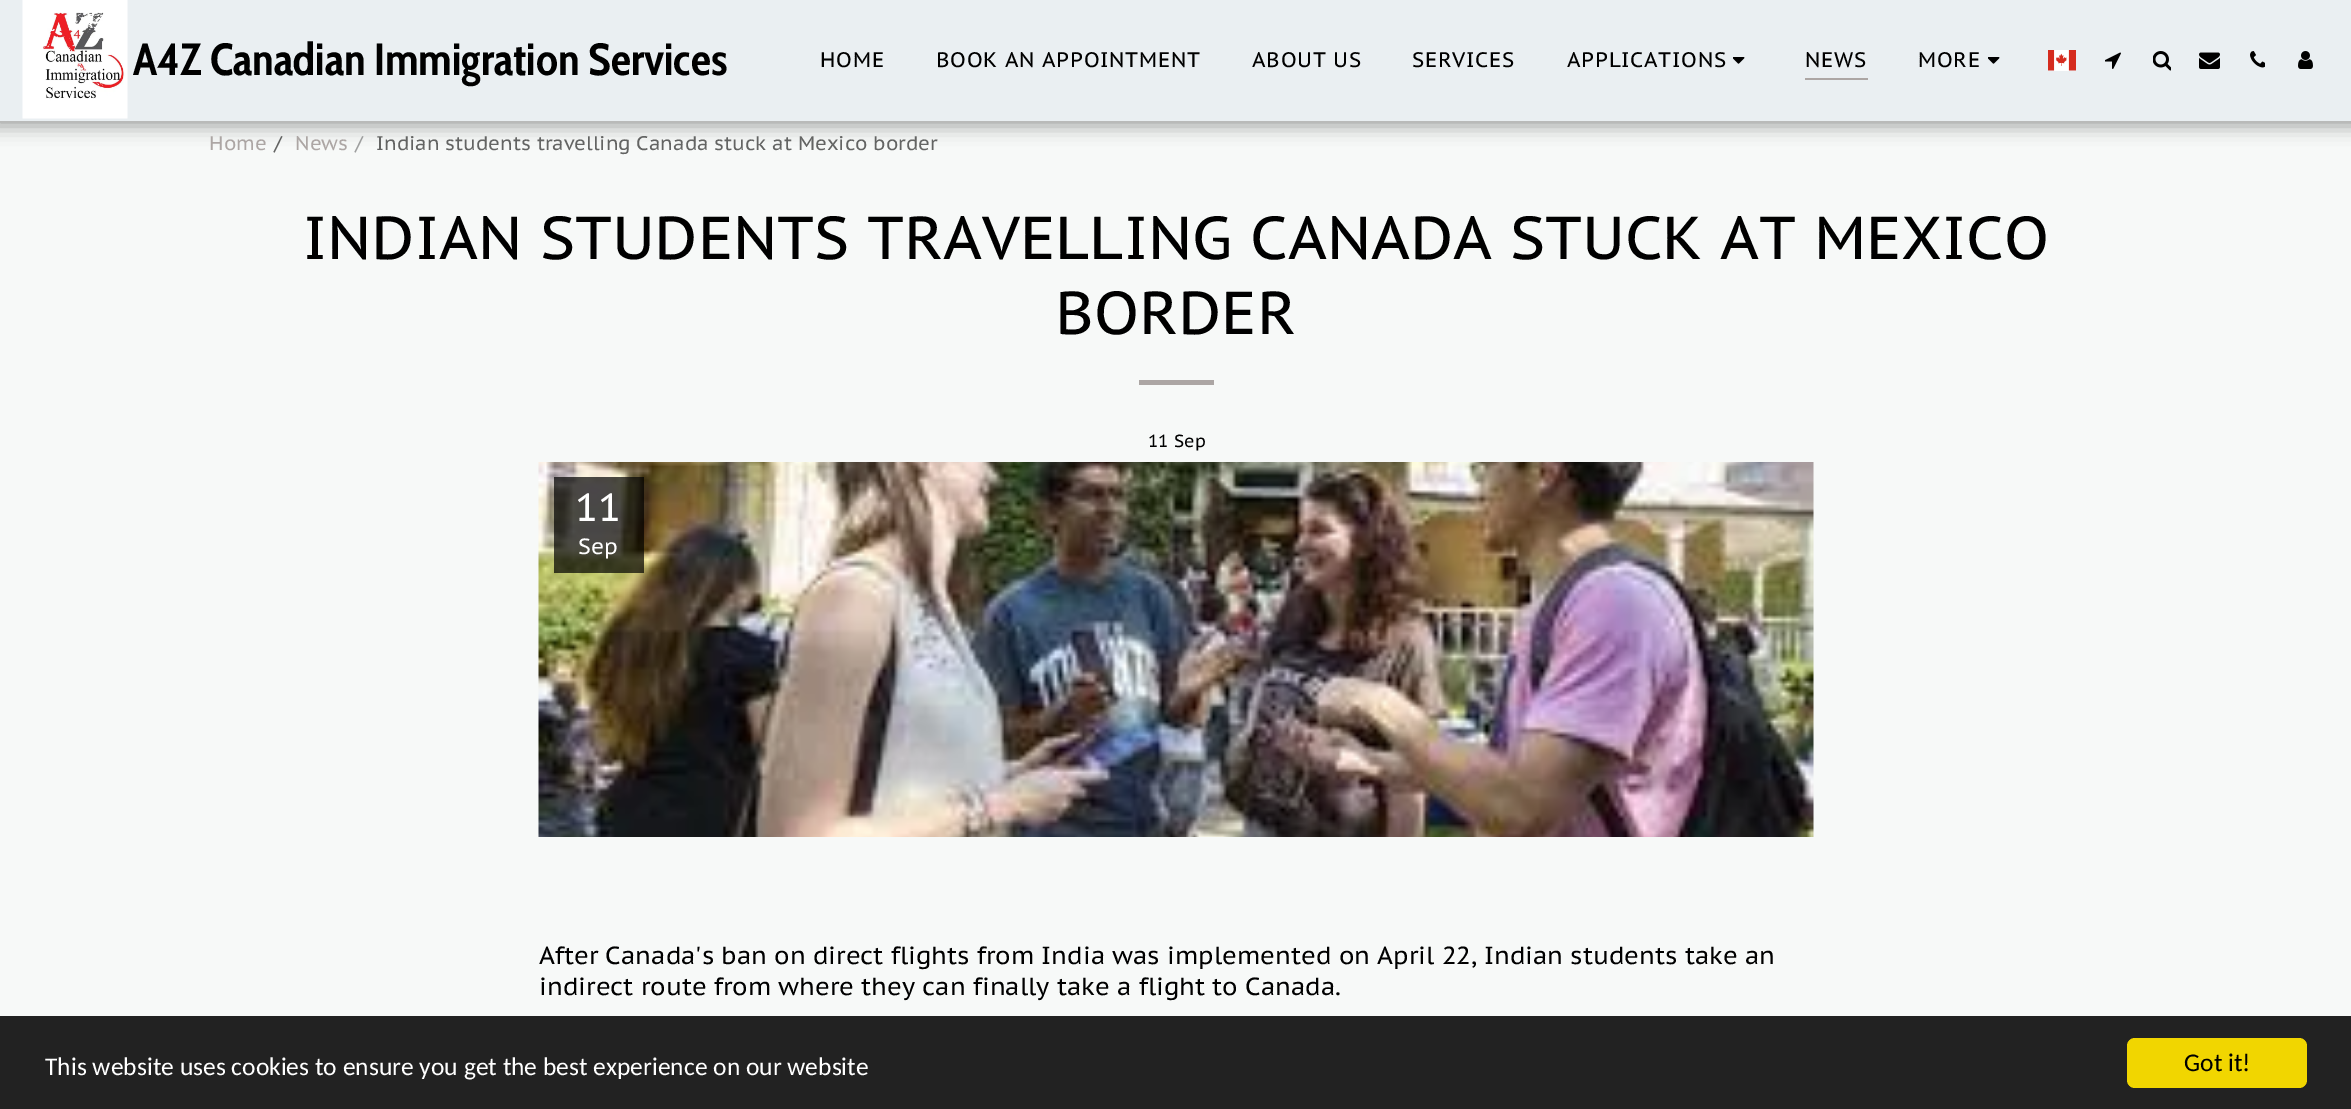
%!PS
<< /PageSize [2351 1109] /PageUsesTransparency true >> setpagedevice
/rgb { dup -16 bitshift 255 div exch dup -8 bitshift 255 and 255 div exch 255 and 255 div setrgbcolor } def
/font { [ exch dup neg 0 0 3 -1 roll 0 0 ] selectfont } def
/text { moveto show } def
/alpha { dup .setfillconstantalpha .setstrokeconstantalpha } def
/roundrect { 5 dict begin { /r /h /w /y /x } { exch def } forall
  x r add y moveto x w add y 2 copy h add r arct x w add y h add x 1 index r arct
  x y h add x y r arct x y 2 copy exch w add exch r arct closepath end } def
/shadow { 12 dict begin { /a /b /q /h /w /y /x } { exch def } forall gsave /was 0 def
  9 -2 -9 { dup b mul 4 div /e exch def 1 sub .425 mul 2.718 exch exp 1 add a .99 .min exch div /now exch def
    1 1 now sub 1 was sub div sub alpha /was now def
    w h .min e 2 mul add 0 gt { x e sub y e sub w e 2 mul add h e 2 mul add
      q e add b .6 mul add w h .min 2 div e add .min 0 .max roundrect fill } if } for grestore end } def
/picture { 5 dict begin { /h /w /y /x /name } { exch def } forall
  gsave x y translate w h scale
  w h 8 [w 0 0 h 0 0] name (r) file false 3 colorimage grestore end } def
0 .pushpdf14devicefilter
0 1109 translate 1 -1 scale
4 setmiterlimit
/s1 { /CabinCondensed-Bold 45 font 16#000000 rgb } def
/s2 { /PTSansCaption-Regular 19.8 font 16#ACA6A4 rgb } def
/s3 { /PTSansCaption-Regular 19.8 font 16#636463 rgb } def
/s4 { /PTSansCaption-Regular 19.8 font 16#9E9F9F rgb } def
/s5 { /PTSansCaption-Regular 60.4 font 16#000000 rgb } def
/s6 { /PTSansCaption-Regular 17.5 font 16#000000 rgb } def
/s7 { /PTSansCaption-Regular 39 font 16#FFFFFF rgb } def
/s8 { /PTSansCaption-Regular 22 font 16#FFFFFF rgb } def
/s9 { /PTSansCaption-Regular 24.75 font 16#000000 rgb } def
/s10 { /Carlito-Regular 25.5 font 16#FFFFFF rgb } def
/s11 { /Carlito-Regular 25.5 font 16#000000 rgb } def
16#F7F9F8 rgb
0 0 2351 1109 rectfill
16#000000 rgb
-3 0 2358 126 0 9 0.35 shadow
16#EAEFF2 rgb
0 0 2351 121 rectfill
(pic1.raw) 22 0 106 119 picture
s1
(A4Z Canadian Immigration Services) 133 75 text
/PTSansCaption-Regular 21 font
820 67 moveto 0.75 0 (HOME) ashow
936 67 moveto 0.75 0 (BOOK AN APPOINTMENT) ashow
1252 67 moveto 0.75 0 (ABOUT US) ashow
1412 67 moveto 0.75 0 (SERVICES) ashow
1567 67 moveto 0.75 0 (APPLICATIONS) ashow
(pic2.raw) 1733 57 12 7 picture
1805 67 moveto 0.75 0 (NEWS) ashow
16#ACA6A4 rgb
1805 78 63 2 rectfill
16#000000 rgb
1918 67 moveto 0.75 0 (MORE) ashow
(pic2.raw) 1988 57 12 7 picture
(pic3.raw) 2048 50 28 21 picture
(pic4.raw) 2105 52 16 17 picture
(pic5.raw) 2153 51 18 20 picture
(pic6.raw) 2199 52 21 17 picture
(pic7.raw) 2250 51 15 17 picture
(pic8.raw) 2298 51 15 18 picture
s2
(Home) 209 150 text
s3
(/) 274 150 text
s2
(News) 295 150 text
s4
(/) 355 150 text
s3
(Indian students travelling Canada stuck at Mexico border) 376 150 text
s5
(INDIAN STUDENTS TRAVELLING CANADA STUCK AT MEXICO) 303 259 text
(BORDER) 1055 334 text
16#ACA6A4 rgb
1139 380 75 5 rectfill
s6
(11 Sep) 1148 447 text
(pic9.raw) 538 462 1276 375 picture
0.7 alpha
554 477 90 96 rectfill
1 alpha
s7
(11) 575 521 text
s8
(Sep) 578 554 text
s9
(After Canada's ban on direct flights from India was implemented on April 22, Indian students take an) 539 964 text
(indirect route from where they can finally take a flight to Canada.) 539 995 text
16#222222 rgb
0 1016 2351 93 rectfill
s10
(This website uses cookies to ensure you get the best experience on our website) 45 1075 text
16#F1D600 rgb
2127 1038 180 50 8 roundrect fill
s11
(Got it!) 2184 1071 text
.poppdf14devicefilter showpage
